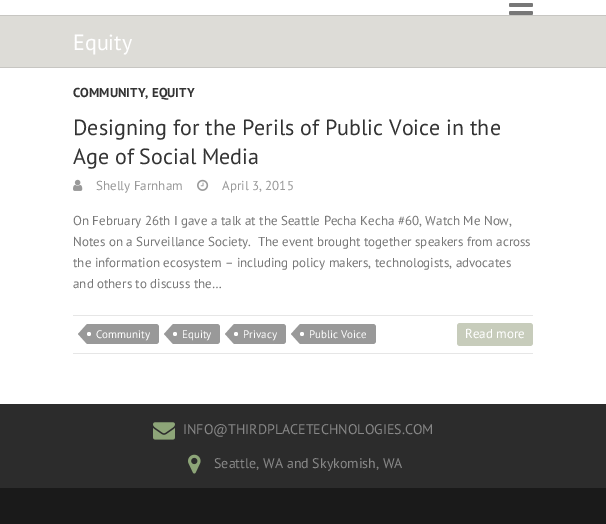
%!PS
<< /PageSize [606 524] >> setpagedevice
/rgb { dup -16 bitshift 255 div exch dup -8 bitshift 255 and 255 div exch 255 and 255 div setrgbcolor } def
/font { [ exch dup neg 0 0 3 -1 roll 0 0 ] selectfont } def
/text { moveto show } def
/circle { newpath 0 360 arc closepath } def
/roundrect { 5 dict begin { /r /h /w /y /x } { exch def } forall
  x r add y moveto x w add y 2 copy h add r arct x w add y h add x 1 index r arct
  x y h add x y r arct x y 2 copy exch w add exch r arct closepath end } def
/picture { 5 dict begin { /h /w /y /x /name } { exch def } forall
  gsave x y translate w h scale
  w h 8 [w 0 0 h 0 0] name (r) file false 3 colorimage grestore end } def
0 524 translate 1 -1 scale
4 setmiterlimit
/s1 { /PTSans-Regular 22 font 16#FFFFFF rgb } def
/s2 { /PTSans-Bold 13 font 16#333333 rgb } def
/s3 { /PTSans-Regular 22 font 16#333333 rgb } def
/s4 { /PTSans-Regular 13 font 16#999999 rgb } def
/s5 { /PTSans-Regular 13 font 16#777777 rgb } def
/s6 { /PTSans-Regular 11 font 16#FFFFFF rgb } def
/s7 { /PTSans-Regular 13 font 16#FFFFFF rgb } def
/s8 { /PTSans-Regular 14 font 16#888888 rgb } def
16#FFFFFF rgb
0 0 606 524 rectfill
(pic1.raw) 509 3 24 12 picture
16#DDDCD7 rgb
0 16 606 51 rectfill
16#C7C6C2 rgb
0 15 606 1 rectfill
0 67 606 1 rectfill
s1
(Equity) 73 50 text
s2
(COMMUNITY, EQUITY) 73 97 text
s3
(Designing for the Perils of Public Voice in the) 73 135 text
(Age of Social Media) 73 164 text
(pic2.raw) 73 179 10 12 picture
s4
(Shelly Farnham) 96 190 text
(pic3.raw) 197 179 12 12 picture
(April 3, 2015) 222 190 text
s5
(On February 26th I gave a talk at the Seattle Pecha Kecha #60, Watch Me Now,) 73 225 text
(Notes on a Surveillance Society.  The event brought together speakers from across) 73 246 text
(the information ecosystem – including policy makers, technologists, advocates) 73 267 text
(and others to discuss the…) 73 288 text
16#E6E6E6 rgb
73 315 460 1 rectfill
73 353 460 1 rectfill
16#999999 rgb
87 324 moveto 156 324 lineto 157.5 324 159 325.5 159 327 curveto 159 341 lineto 159 342.5 157.5 344 156 344 curveto 87 344 lineto closepath fill
87 324 moveto 87 344 lineto 78 334 lineto closepath fill
16#FFFFFF rgb
89 334 2 circle fill
s6
(Community) 96 338 text
16#999999 rgb
173 324 moveto 217 324 lineto 218.5 324 220 325.5 220 327 curveto 220 341 lineto 220 342.5 218.5 344 217 344 curveto 173 344 lineto closepath fill
173 324 moveto 173 344 lineto 164 334 lineto closepath fill
16#FFFFFF rgb
175 334 2 circle fill
(Equity) 182 338 text
16#999999 rgb
234 324 moveto 283 324 lineto 284.5 324 286 325.5 286 327 curveto 286 341 lineto 286 342.5 284.5 344 283 344 curveto 234 344 lineto closepath fill
234 324 moveto 234 344 lineto 225 334 lineto closepath fill
16#FFFFFF rgb
236 334 2 circle fill
(Privacy) 243 338 text
16#999999 rgb
300 324 moveto 373 324 lineto 374.5 324 376 325.5 376 327 curveto 376 341 lineto 376 342.5 374.5 344 373 344 curveto 300 344 lineto closepath fill
300 324 moveto 300 344 lineto 291 334 lineto closepath fill
16#FFFFFF rgb
302 334 2 circle fill
(Public Voice) 309 338 text
16#C7CCBB rgb
457 323 76 23 3 roundrect fill
s7
(Read more) 465 338 text
16#2C2C2C rgb
0 404 606 84 rectfill
(pic4.raw) 153 422 22 18 picture
s8
(INFO@THIRDPLACETECHNOLOGIES.COM) 183 434 text
(pic5.raw) 188 454 13 20 picture
(Seattle, WA and Skykomish, WA) 214 468 text
16#1A1A1A rgb
0 488 606 36 rectfill
showpage
